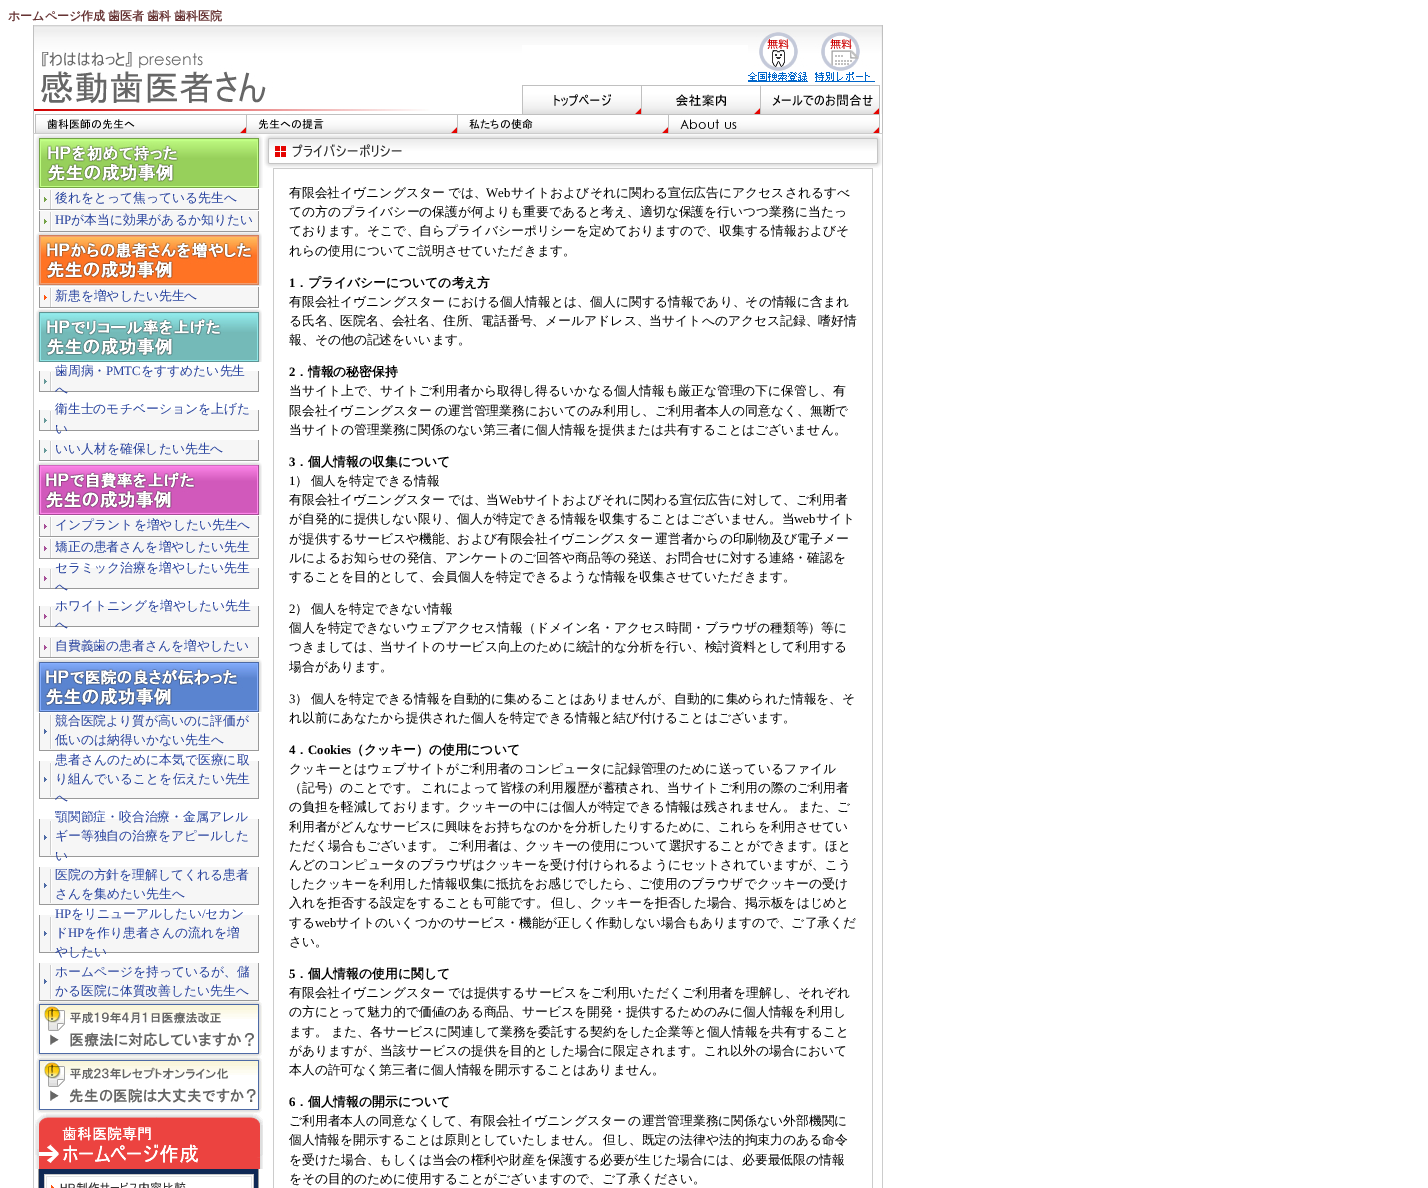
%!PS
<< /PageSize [1428 1188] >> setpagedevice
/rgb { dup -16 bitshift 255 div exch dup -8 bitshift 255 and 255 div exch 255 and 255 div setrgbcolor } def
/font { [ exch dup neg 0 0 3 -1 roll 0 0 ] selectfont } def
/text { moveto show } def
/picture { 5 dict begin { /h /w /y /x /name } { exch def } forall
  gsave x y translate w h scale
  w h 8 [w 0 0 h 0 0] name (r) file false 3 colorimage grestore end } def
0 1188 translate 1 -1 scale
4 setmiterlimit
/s1 { /WenQuanYiZenHei-Medium 12.8 font 16#27429E rgb } def
/s2 { /LiberationSerif-Regular 12.8 font 16#27429E rgb } def
/s3 { /LiberationSerif-Regular 12.8 font 16#000000 rgb } def
/s4 { /WenQuanYiZenHei-Medium 12.8 font 16#000000 rgb } def
/s5 { /LiberationSerif-Bold 12.8 font 16#000000 rgb } def
/s6 { /WenQuanYiZenHei-Bold 12.8 font 16#000000 rgb } def
16#FFFFFF rgb
0 0 1428 1188 rectfill
/WenQuanYiZenHei-Bold 12 font
16#663333 rgb
8 20 moveto -0.5 0 32 (ホームページ作成 歯医者 歯科 歯科医院) widthshow
(pic1.raw) 33 25 489 89 picture
(pic2.raw) 522 25 226 20 picture
(pic3.raw) 748 25 67 57 picture
(pic4.raw) 815 25 68 60 picture
(pic5.raw) 522 85 119 29 picture
(pic6.raw) 641 85 119 29 picture
(pic7.raw) 760 85 123 29 picture
(pic8.raw) 33 114 214 19 picture
(pic9.raw) 247 114 211 19 picture
(pic10.raw) 458 114 211 19 picture
(pic11.raw) 669 114 214 19 picture
16#CCCCCC rgb
33 133 850 1055 rectfill
16#FFFFFF rgb
34 134 848 1054 rectfill
(pic12.raw) 35 134 228 54 picture
(pic13.raw) 39 189 220 21 picture
s1
(後れをとって焦っている先生へ) 55 202 text
(pic13.raw) 39 211 220 21 picture
s2
(HP) 55 224 text
s1
(が本当に効果があるか知りたい) 71 224 text
(pic14.raw) 36 232 226 54 picture
(pic15.raw) 39 287 220 21 picture
(新患を増やしたい先生へ) 55 300 text
(pic16.raw) 36 309 226 53 picture
(pic17.raw) 39 371 220 21 picture
(歯周病・) 55 375 text
s2
(PMTC) 106 375 text
s1
(をすすめたい先生) 141 375 text
(へ) 55 394 text
(pic17.raw) 39 410 220 21 picture
(衛生士のモチベーションを上げた) 55 413 text
(い) 55 433 text
(pic17.raw) 39 440 220 21 picture
(いい人材を確保したい先生へ) 55 453 text
(pic18.raw) 36 462 226 53 picture
(pic19.raw) 39 516 220 21 picture
(インプラントを増やしたい先生へ) 55 529 text
(pic19.raw) 39 538 220 21 picture
(矯正の患者さんを増やしたい先生) 55 551 text
(pic19.raw) 39 568 220 21 picture
(セラミック治療を増やしたい先生) 55 572 text
(へ) 55 591 text
(pic19.raw) 39 606 220 21 picture
(ホワイトニングを増やしたい先生) 55 610 text
(へ) 55 629 text
(pic19.raw) 39 637 220 21 picture
(自費義歯の患者さんを増やしたい) 55 650 text
(pic20.raw) 36 659 226 53 picture
(pic21.raw) 39 713 220 38 picture
(競合医院より質が高いのに評価が) 55 725 text
(低いのは納得いかない先生へ) 55 744 text
(pic21.raw) 39 761 220 38 picture
(患者さんのために本気で医療に取) 55 764 text
(り組んでいることを伝えたい先生) 55 783 text
(へ) 55 802 text
(pic21.raw) 39 819 220 38 picture
(顎関節症・咬合治療・金属アレル) 55 821 text
(ギー等独自の治療をアピールした) 55 840 text
(い) 55 860 text
(pic21.raw) 39 867 220 38 picture
(医院の方針を理解してくれる患者) 55 879 text
(さんを集めたい先生へ) 55 898 text
(pic21.raw) 39 915 220 38 picture
s2
(HP) 55 918 text
s1
(をリニューアルしたい) 71 918 text
s2
(/) 202 918 text
s1
(セカン) 205 918 text
(ド) 55 937 text
s2
(HP) 68 937 text
s1
(を作り患者さんの流れを増) 84 937 text
(やしたい) 55 956 text
(pic21.raw) 39 963 220 38 picture
(ホームページを持っているが、儲) 55 976 text
(かる医院に体質改善したい先生へ) 55 995 text
(pic22.raw) 36 1001 226 56 picture
(pic23.raw) 36 1057 226 56 picture
(pic24.raw) 35 1113 228 56 picture
(pic25.raw) 38 1169 221 19 picture
(pic26.raw) 264 134 618 34 picture
16#CCCCCC rgb
273 168 600 1020 rectfill
16#FFFFFF rgb
274 169 598 1019 rectfill
16#000000 rgb
289 197 moveto -1 0 32 (有限会社イヴニングスター では、) widthshow
s3
(Web) 486 197 text
s4
(サイトおよびそれに関わる宣伝広告にアクセスされるすべ) 511 197 text
(ての方のプライバシーの保護が何よりも重要であると考え、適切な保護を行いつつ業務に当たっ) 289 216 text
(ております。そこで、自らプライバシーポリシーを定めておりますので、収集する情報およびそ) 289 235 text
(れらの使用についてご説明させていただきます。) 289 255 text
s5
(1) 289 287 text
s6
(．プライバシーについての考え方) 295 287 text
/WenQuanYiZenHei-Medium 12.8 font
289 306 moveto -1 0 32 (有限会社イヴニングスター における個人情報とは、個人に関する情報であり、その情報に含まれ) widthshow
(る氏名、医院名、会社名、住所、電話番号、メールアドレス、当サイトへのアクセス記録、嗜好情) 289 325 text
(報、その他の記述をいいます。) 289 344 text
s5
(2) 289 376 text
s6
(．情報の秘密保持) 295 376 text
s4
(当サイト上で、サイトご利用者から取得し得るいかなる個人情報も厳正な管理の下に保管し、有) 289 395 text
(限会社イヴニングスター) 289 415 text
(の運営管理業務においてのみ利用し、ご利用者本人の同意なく、無断で) 435 415 text
(当サイトの管理業務に関係のない第三者に個人情報を提供または共有することはございません。) 289 434 text
s5
(3) 289 466 text
s6
(．個人情報の収集について) 295 466 text
s3
(1) 289 485 text
/WenQuanYiZenHei-Medium 12.8 font
295 485 moveto -1 0 32 (） 個人を特定できる情報) widthshow
289 504 moveto -1 0 32 (有限会社イヴニングスター では、当) widthshow
s3
(Web) 499 504 text
s4
(サイトおよびそれに関わる宣伝広告に対して、ご利用者) 523 504 text
(が自発的に提供しない限り、個人が特定できる情報を収集することはございません。当) 289 523 text
s3
(web) 794 523 text
s4
(サイト) 816 523 text
(が提供するサービスや機能、および有限会社イヴニングスター) 289 543 text
(運営者からの印刷物及び電子メー) 655 543 text
(ルによるお知らせの発信、アンケートのご回答や商品等の発送、お問合せに対する連絡・確認を) 289 562 text
(することを目的として、会員個人を特定できるような情報を収集させていただきます。) 289 581 text
s3
(2) 289 613 text
/WenQuanYiZenHei-Medium 12.8 font
295 613 moveto -1 0 32 (） 個人を特定できない情報) widthshow
(個人を特定できないウェブアクセス情報（ドメイン名・アクセス時間・ブラウザの種類等）等に) 289 632 text
(つきましては、当サイトのサービス向上のために統計的な分析を行い、検討資料として利用する) 289 651 text
(場合があります。) 289 671 text
s3
(3) 289 703 text
/WenQuanYiZenHei-Medium 12.8 font
295 703 moveto -1 0 32 (） 個人を特定できる情報を自動的に集めることはありませんが、自動的に集められた情報を、そ) widthshow
(れ以前にあなたから提供された個人を特定できる情報と結び付けることはございます。) 289 722 text
s5
(4) 289 754 text
s6
(．) 295 754 text
s5
(Cookies) 308 754 text
s6
(（クッキー）の使用について) 351 754 text
s4
(クッキーとはウェブサイトがご利用者のコンピュータに記録管理のために送っているファイル) 289 773 text
(（記号）のことです。) 289 792 text
(これによって皆様の利用履歴が蓄積され、当サイトご利用の際のご利用者) 421 792 text
(の負担を軽減しております。クッキーの中には個人が特定できる情報は残されません。) 289 811 text
(また、ご) 798 811 text
(利用者がどんなサービスに興味をお持ちなのかを分析したりするために、これらを利用させてい) 289 831 text
(ただく場合もございます。) 289 850 text
(ご利用者は、クッキーの使用について選択することができます。ほと) 448 850 text
(んどのコンピュータのブラウザはクッキーを受け付けられるようにセットされていますが、こう) 289 869 text
(したクッキーを利用した情報収集に抵抗をお感じでしたら、ご使用のブラウザでクッキーの受け) 289 888 text
(入れを拒否する設定をすることも可能です。) 289 907 text
(但し、クッキーを拒否した場合、掲示板をはじめと) 551 907 text
(する) 289 927 text
s3
(web) 315 927 text
s4
(サイトのいくつかのサービス・機能が正しく作動しない場合もありますので、ご了承くだ) 336 927 text
(さい。) 289 946 text
s5
(5) 289 978 text
s6
(．個人情報の使用に関して) 295 978 text
/WenQuanYiZenHei-Medium 12.8 font
289 997 moveto -1 0 32 (有限会社イヴニングスター では提供するサービスをご利用いただくご利用者を理解し、それぞれ) widthshow
(の方にとって魅力的で価値のある商品、サービスを開発・提供するためのみに個人情報を利用し) 289 1016 text
(ます。) 289 1036 text
(また、各サービスに関連して業務を委託する契約をした企業等と個人情報を共有すること) 331 1036 text
(がありますが、当該サービスの提供を目的とした場合に限定されます。これ以外の場合において) 289 1055 text
(本人の許可なく第三者に個人情報を開示することはありません。) 289 1074 text
s5
(6) 289 1106 text
s6
(．個人情報の開示について) 295 1106 text
/WenQuanYiZenHei-Medium 12.8 font
289 1125 moveto -1 0 32 (ご利用者本人の同意なくして、有限会社イヴニングスター の運営管理業務に関係ない外部機関に) widthshow
(個人情報を開示することは原則としていたしません。) 289 1144 text
(但し、既定の法律や法的拘束力のある命令) 603 1144 text
(を受けた場合、もしくは当会の権利や財産を保護する必要が生じた場合には、必要最低限の情報) 289 1164 text
(をその目的のために使用することがございますので、ご了承ください。) 289 1183 text
showpage
